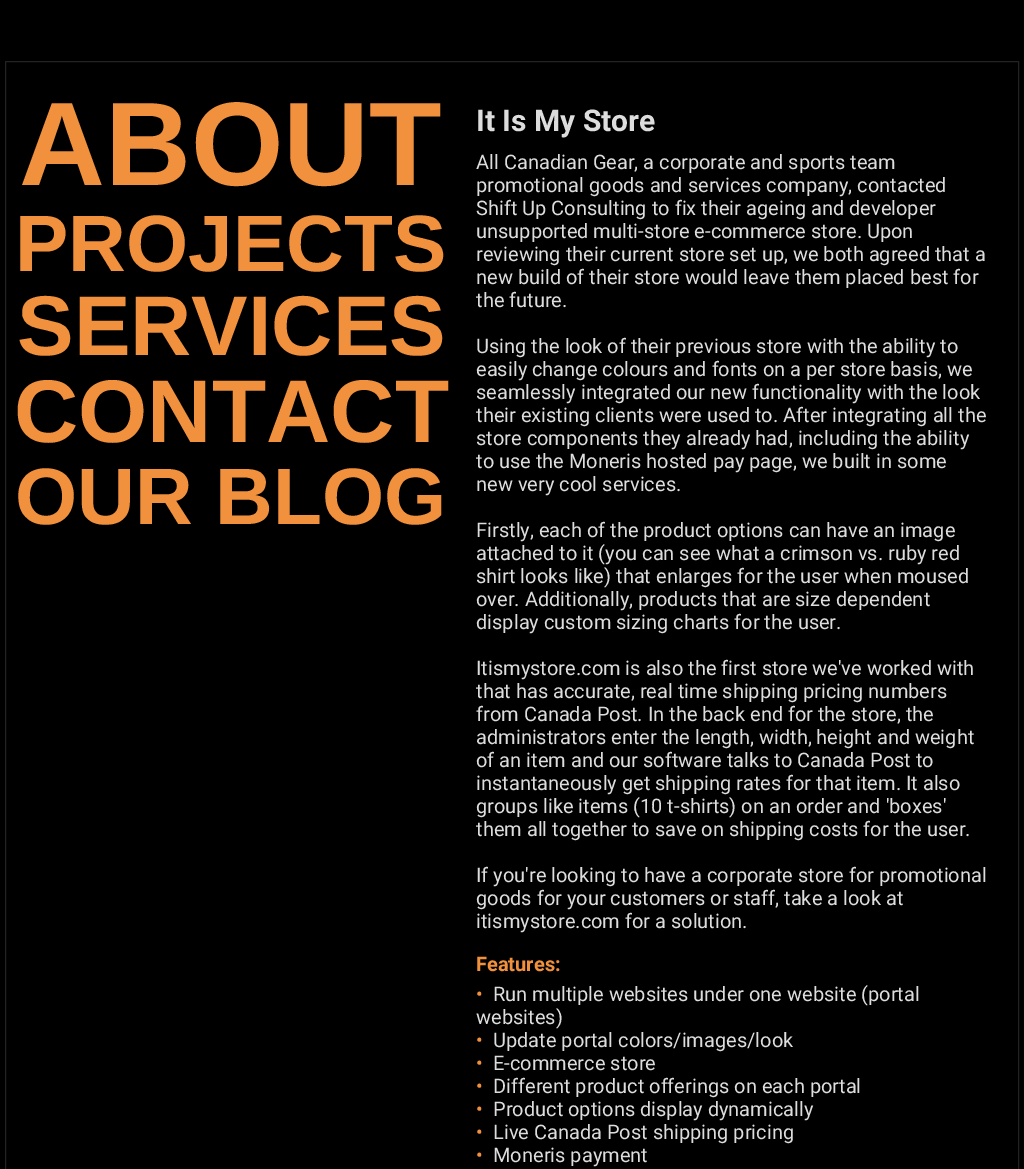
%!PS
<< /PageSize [1024 1169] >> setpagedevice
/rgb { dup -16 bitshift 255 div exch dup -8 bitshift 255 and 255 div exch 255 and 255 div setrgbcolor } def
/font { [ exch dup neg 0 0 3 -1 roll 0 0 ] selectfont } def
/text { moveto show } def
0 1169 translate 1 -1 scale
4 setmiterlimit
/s1 { /LiberationSans-Bold 119 font 16#F1913D rgb } def
/s2 { /LiberationSans-Bold 80 font 16#F1913D rgb } def
/s3 { /LiberationSans-Bold 84.75 font 16#F1913D rgb } def
/s4 { /LiberationSans-Bold 89 font 16#F1913D rgb } def
/s5 { /Roboto-Bold 30 font 16#DDDDDD rgb } def
/s6 { /Roboto-Regular 20 font 16#DDDDDD rgb } def
/s7 { /Roboto-Bold 20 font 16#F1913D rgb } def
/s8 { /Roboto-Regular 20 font 16#F1913D rgb } def
16#000000 rgb
0 0 1024 1169 rectfill
16#222222 rgb
5.5 61.5 1013 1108 rectstroke
s1
(ABOUT) 19 185 text
s2
(PROJECTS) 15 271 text
s3
(SERVICES) 17 355 text
s4
(CONTACT) 14 442 text
s2
(OUR BLOG) 15 524 text
s5
(It Is My Store) 476 131 text
s6
(All Canadian Gear, a corporate and sports team) 476 169 text
(promotional goods and services company, contacted) 476 192 text
(Shift Up Consulting to fix their ageing and developer) 476 215 text
(unsupported multi-store e-commerce store. Upon) 476 238 text
(reviewing their current store set up, we both agreed that a) 476 261 text
(new build of their store would leave them placed best for) 476 284 text
(the future.) 476 307 text
(Using the look of their previous store with the ability to) 476 353 text
(easily change colours and fonts on a per store basis, we) 476 376 text
(seamlessly integrated our new functionality with the look) 476 399 text
(their existing clients were used to. After integrating all the) 476 422 text
(store components they already had, including the ability) 476 445 text
(to use the Moneris hosted pay page, we built in some) 476 468 text
(new very cool services.) 476 491 text
(Firstly, each of the product options can have an image) 476 537 text
(attached to it \(you can see what a crimson vs. ruby red) 476 560 text
(shirt looks like\) that enlarges for the user when moused) 476 583 text
(over. Additionally, products that are size dependent) 476 606 text
(display custom sizing charts for the user.) 476 629 text
(Itismystore.com is also the first store we've worked with) 476 675 text
(that has accurate, real time shipping pricing numbers) 476 698 text
(from Canada Post. In the back end for the store, the) 476 721 text
(administrators enter the length, width, height and weight) 476 744 text
(of an item and our software talks to Canada Post to) 476 767 text
(instantaneously get shipping rates for that item. It also) 476 790 text
(groups like items \(10 t-shirts\) on an order and 'boxes') 476 813 text
(them all together to save on shipping costs for the user.) 476 836 text
(If you're looking to have a corporate store for promotional) 476 882 text
(goods for your customers or staff, take a look at) 476 905 text
(itismystore.com for a solution.) 476 928 text
s7
(Features:) 476 971 text
s8
(•) 476 1001 text
s6
(Run multiple websites under one website \(portal) 493 1001 text
(websites\)) 476 1024 text
s8
(•) 476 1047 text
s6
(Update portal colors/images/look) 493 1047 text
s8
(•) 476 1070 text
s6
(E-commerce store) 493 1070 text
s8
(•) 476 1093 text
s6
(Different product offerings on each portal) 493 1093 text
s8
(•) 476 1116 text
s6
(Product options display dynamically) 493 1116 text
s8
(•) 476 1139 text
s6
(Live Canada Post shipping pricing) 493 1139 text
s8
(•) 476 1162 text
s6
(Moneris payment) 493 1162 text
showpage
